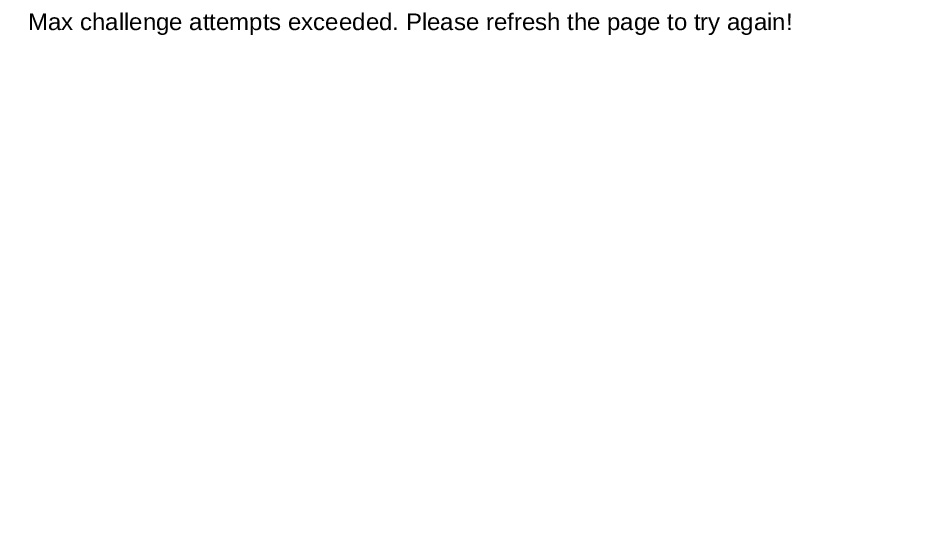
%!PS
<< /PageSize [925 556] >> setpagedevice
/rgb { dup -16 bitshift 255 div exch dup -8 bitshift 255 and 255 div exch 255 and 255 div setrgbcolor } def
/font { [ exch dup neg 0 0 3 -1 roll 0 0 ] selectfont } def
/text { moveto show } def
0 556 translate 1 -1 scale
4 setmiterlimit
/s1 { /LiberationSans-Regular 24 font 16#000000 rgb } def
16#FFFFFF rgb
0 0 925 556 rectfill
s1
(Max challenge attempts exceeded. Please refresh the page to try again!) 28 30 text
showpage
